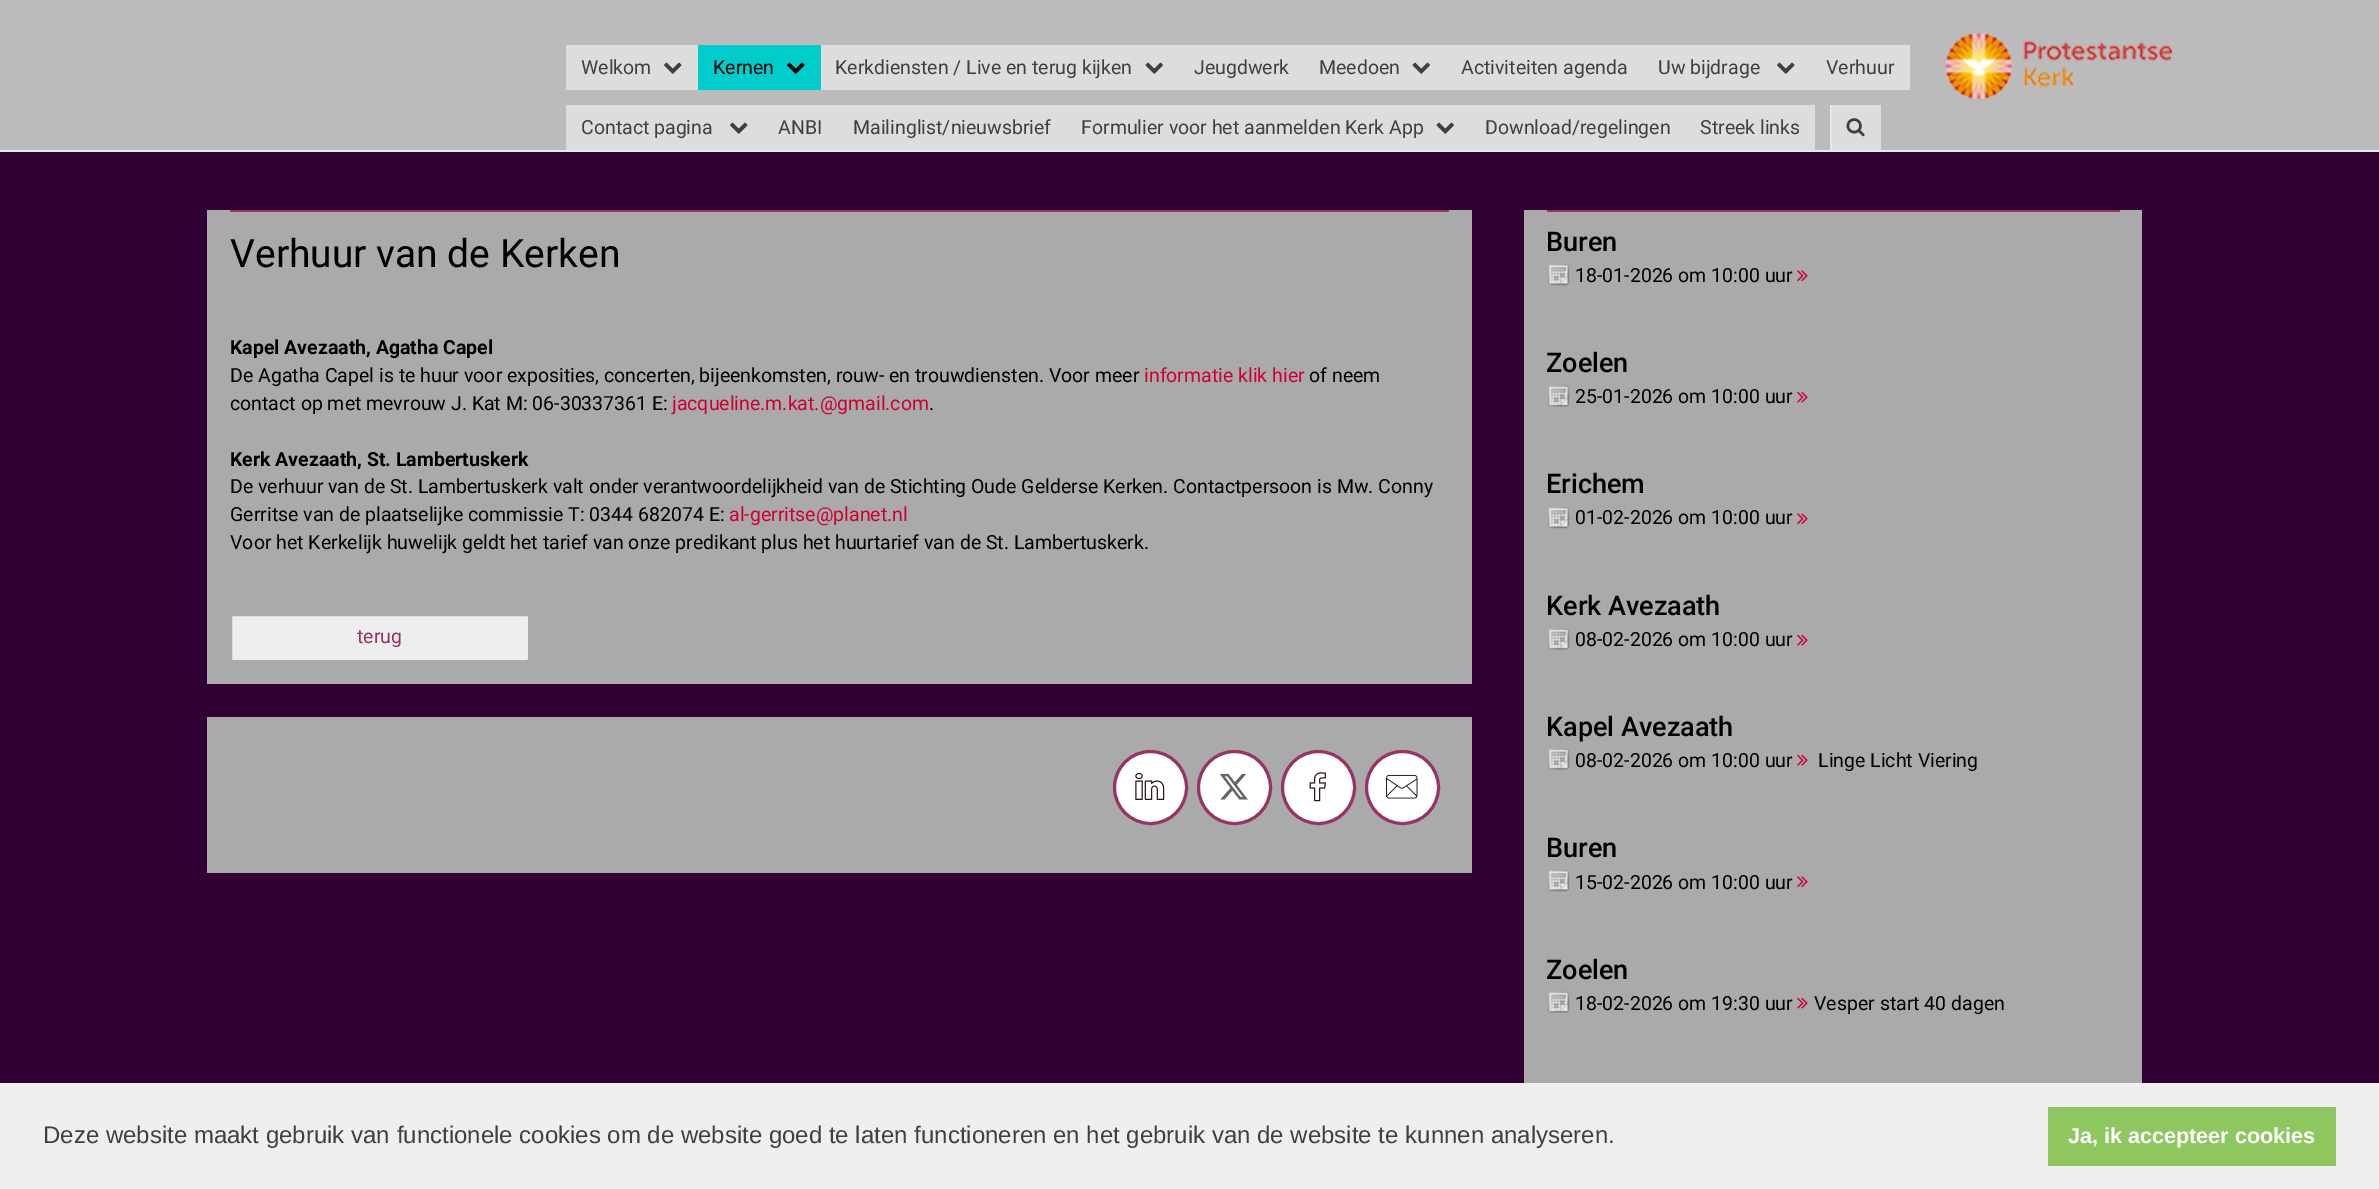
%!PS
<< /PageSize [2379 1189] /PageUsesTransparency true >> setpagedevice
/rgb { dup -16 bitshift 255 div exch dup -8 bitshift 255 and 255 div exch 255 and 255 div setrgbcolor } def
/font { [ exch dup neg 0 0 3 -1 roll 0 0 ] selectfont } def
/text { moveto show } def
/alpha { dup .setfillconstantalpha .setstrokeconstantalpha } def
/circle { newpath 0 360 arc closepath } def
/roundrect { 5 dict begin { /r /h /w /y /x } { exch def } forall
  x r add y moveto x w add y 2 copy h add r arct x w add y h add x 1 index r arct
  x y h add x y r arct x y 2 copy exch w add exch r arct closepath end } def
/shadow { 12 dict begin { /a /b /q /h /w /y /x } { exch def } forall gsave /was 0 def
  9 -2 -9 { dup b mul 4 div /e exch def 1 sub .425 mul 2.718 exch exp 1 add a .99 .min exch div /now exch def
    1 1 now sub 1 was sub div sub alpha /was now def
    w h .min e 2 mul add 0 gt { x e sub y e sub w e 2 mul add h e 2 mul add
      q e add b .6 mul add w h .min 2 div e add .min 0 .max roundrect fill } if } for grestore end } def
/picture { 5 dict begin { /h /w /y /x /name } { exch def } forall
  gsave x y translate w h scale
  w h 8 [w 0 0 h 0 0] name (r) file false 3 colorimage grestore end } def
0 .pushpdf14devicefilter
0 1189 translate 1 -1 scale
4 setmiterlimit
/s1 { /Roboto-Regular 19.5 font 16#3F3F3F rgb } def
/s2 { /Roboto-Regular 19.5 font 16#000000 rgb } def
/s3 { /Roboto-Regular 39 font 16#000000 rgb } def
/s4 { /Roboto-Bold 19.5 font 16#000000 rgb } def
/s5 { /Roboto-Regular 19.5 font 16#CC0033 rgb } def
/s6 { /Roboto-Regular 19.5 font 16#993366 rgb } def
/s7 { /Roboto-Medium 27 font 16#000000 rgb } def
/s8 { /LiberationSans-Regular 24 font 16#3F3F3F rgb } def
/s9 { /LiberationSans-Bold 21.6 font 16#FFFFFF rgb } def
16#330033 rgb
0 0 2379 1189 rectfill
16#000000 rgb
0 0 2379 152 0 2 0.22 shadow
16#BBBBBB rgb
0 0 2379 150 rectfill
16#E7E7E7 rgb
0 150 2379 2 rectfill
16#DDDDDD rgb
566 45 132 45 rectfill
s1
(Welkom) 581 74 text
(pic1.raw) 664 62 18 12 picture
16#00CCCC rgb
698 45 123 45 rectfill
s2
(Kernen) 713 74 text
(pic2.raw) 787 62 18 12 picture
16#DDDDDD rgb
821 45 1089 45 rectfill
s1
(Kerkdiensten / Live en terug kijken) 835 74 text
(pic3.raw) 1145 62 18 12 picture
(Jeugdwerk) 1194 74 text
(Meedoen) 1319 74 text
(pic3.raw) 1412 62 18 12 picture
(Activiteiten agenda) 1461 74 text
(Uw bijdrage) 1658 74 text
(pic1.raw) 1777 62 18 12 picture
(Verhuur) 1826 74 text
16#DDDDDD rgb
566 105 1249 45 rectfill
s1
(Contact pagina) 581 134 text
(pic1.raw) 730 122 18 12 picture
(ANBI) 778 134 text
(Mailinglist/nieuwsbrief) 853 134 text
(Formulier voor het aanmelden Kerk App) 1081 134 text
(pic3.raw) 1436 122 18 12 picture
(Download/regelingen) 1485 134 text
(Streek links) 1700 134 text
16#DDDDDD rgb
1832 105 49 45 rectfill
16#E7E7E7 rgb
1830 105 2 45 rectfill
(pic4.raw) 1846 118 19 19 picture
(pic5.raw) 1945 33 227 66 picture
16#AAAAAA rgb
207 210 1265 474 rectfill
16#993366 rgb
230 210 1219 2 rectfill
s3
(Verhuur van de Kerken) 230 267 text
s4
(Kapel Avezaath, Agatha Capel) 230 354 text
s2
(De Agatha Capel is te huur voor exposities, concerten, bijeenkomsten, rouw- en trouwdiensten. Voor meer) 230 382 text
s5
(informatie klik hier) 1144 382 text
s2
(of neem) 1309 382 text
(contact op met mevrouw J. Kat M: 06-30337361 E:) 230 410 text
s5
(jacqueline.m.kat.@gmail.com) 672 410 text
s2
(.) 929 410 text
s4
(Kerk Avezaath, St. Lambertuskerk) 230 466 text
s2
(De verhuur van de St. Lambertuskerk valt onder verantwoordelijkheid van de Stichting Oude Gelderse Kerken. Contactpersoon is Mw. Conny) 230 493 text
(Gerritse van de plaatselijke commissie T: 0344 682074 E:) 230 521 text
s5
(al-gerritse@planet.nl) 729 521 text
s2
(Voor het Kerkelijk huwelijk geldt het tarief van onze predikant plus het huurtarief van de St. Lambertuskerk.) 230 549 text
16#EEEEEE rgb
231 615 298 46 2 roundrect gsave fill grestore
16#AAAAAA rgb
2 setlinewidth
stroke
s6
(terug) 357 643 text
16#AAAAAA rgb
207 717 1265 156 rectfill
16#FFFFFF rgb
1150.5 787.5 36 circle gsave fill grestore
16#993366 rgb
3 setlinewidth
stroke
(pic6.raw) 1135 772 30 28 picture
16#FFFFFF rgb
1234.5 787.5 36 circle gsave fill grestore
16#993366 rgb
stroke
(pic7.raw) 1219 773 29 27 picture
16#FFFFFF rgb
1318.5 787.5 36 circle gsave fill grestore
16#993366 rgb
stroke
(pic8.raw) 1309 772 17 30 picture
16#FFFFFF rgb
1402.5 787.5 36 circle gsave fill grestore
16#993366 rgb
stroke
(pic9.raw) 1386 774 32 25 picture
16#AAAAAA rgb
1524 210 618 873 rectfill
16#993366 rgb
1547 210 573 2 rectfill
s7
(Buren) 1546 251 text
(pic10.raw) 1548 264 22 22 picture
s2
(18-01-2026 om 10:00 uur) 1575 282 text
(pic11.raw) 1797 270 11 12 picture
s7
(Zoelen) 1546 372 text
(pic12.raw) 1548 385 22 22 picture
s2
(25-01-2026 om 10:00 uur) 1575 403 text
(pic13.raw) 1797 391 11 12 picture
s7
(Erichem) 1546 493 text
(pic10.raw) 1548 507 22 22 picture
s2
(01-02-2026 om 10:00 uur) 1575 524 text
(pic11.raw) 1797 513 11 12 picture
s7
(Kerk Avezaath) 1546 615 text
(pic12.raw) 1548 628 22 22 picture
s2
(08-02-2026 om 10:00 uur) 1575 646 text
(pic13.raw) 1797 634 11 12 picture
s7
(Kapel Avezaath) 1546 736 text
(pic12.raw) 1548 748 22 22 picture
s2
(08-02-2026 om 10:00 uur) 1575 767 text
(pic13.raw) 1797 754 11 12 picture
(Linge Licht Viering) 1818 767 text
s7
(Buren) 1546 857 text
(pic10.raw) 1548 870 22 22 picture
s2
(15-02-2026 om 10:00 uur) 1575 889 text
(pic11.raw) 1797 876 11 12 picture
s7
(Zoelen) 1546 979 text
(pic12.raw) 1548 991 22 22 picture
s2
(18-02-2026 om 19:30 uur) 1575 1010 text
(pic13.raw) 1797 997 11 12 picture
(Vesper start 40 dagen) 1814 1010 text
16#EFEFEF rgb
0 1083 2379 106 rectfill
s8
(Deze website maakt gebruik van functionele cookies om de website goed te laten functioneren en het gebruik van de website te kunnen analyseren.) 43 1143 text
16#8EC760 rgb
2048 1107 288 59 rectfill
s9
(Ja, ik accepteer cookies) 2068 1143 text
.poppdf14devicefilter showpage
